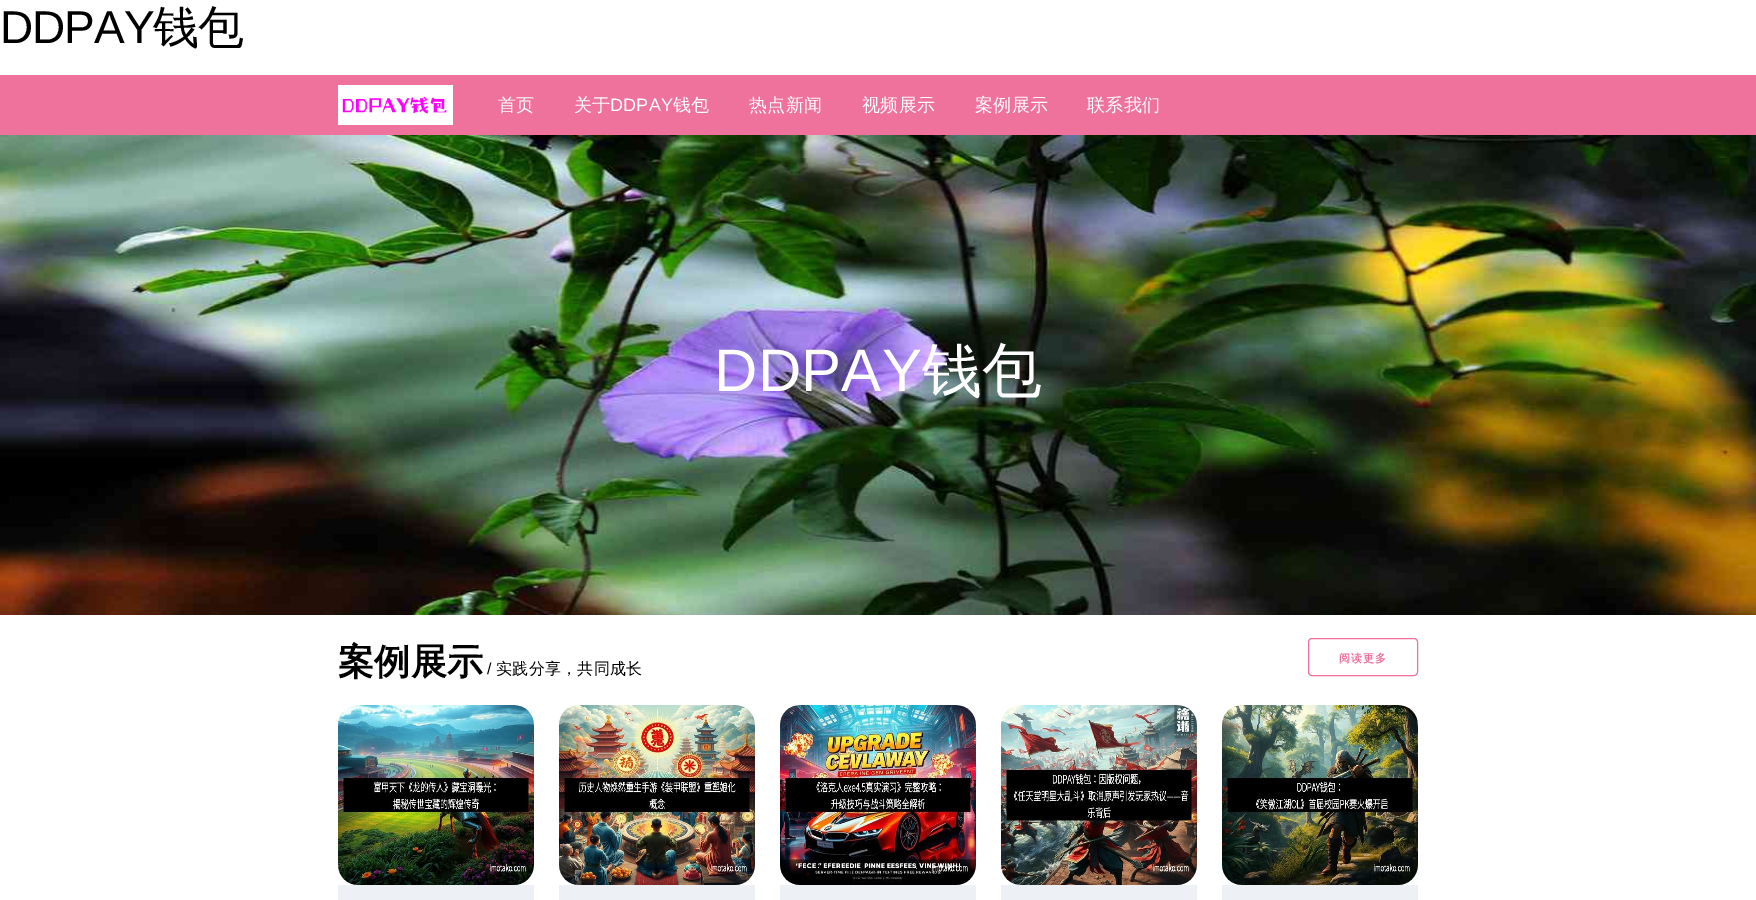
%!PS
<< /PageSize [1756 900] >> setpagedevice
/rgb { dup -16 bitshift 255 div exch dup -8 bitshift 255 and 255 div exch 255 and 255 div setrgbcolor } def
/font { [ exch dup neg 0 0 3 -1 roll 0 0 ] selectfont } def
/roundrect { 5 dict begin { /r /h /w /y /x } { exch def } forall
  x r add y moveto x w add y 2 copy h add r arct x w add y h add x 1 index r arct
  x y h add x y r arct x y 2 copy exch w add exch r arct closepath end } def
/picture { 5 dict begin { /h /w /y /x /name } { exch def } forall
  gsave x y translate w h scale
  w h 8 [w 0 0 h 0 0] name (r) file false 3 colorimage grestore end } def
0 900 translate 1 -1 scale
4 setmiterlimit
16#FFFFFF rgb
0 0 1756 900 rectfill
/LiberationSans-Regular 46 font
16#000000 rgb
0 43 moveto -1 0 (DDPAY) ashow
/WenQuanYiZenHei-Medium 46 font
153 43 moveto -1 0 (钱包) ashow
16#EE729C rgb
0 75 1756 60 rectfill
(pic1.raw) 338 85 115 40 picture
/WenQuanYiZenHei-Medium 18 font
16#FFFFFF rgb
498 111 moveto 0.25 0 (首页) ashow
574 111 moveto 0.25 0 (关于) ashow
/LiberationSans-Regular 18 font
610 111 moveto 0.25 0 (DDPAY) ashow
/WenQuanYiZenHei-Medium 18 font
673 111 moveto 0.25 0 (钱包) ashow
749 111 moveto 0.25 0 (热点新闻) ashow
862 111 moveto 0.25 0 (视频展示) ashow
975 111 moveto 0.25 0 (案例展示) ashow
1087 111 moveto 0.25 0 (联系我们) ashow
(pic2.raw) 0 135 1756 480 picture
/LiberationSans-Regular 60 font
714 391 moveto 0.25 0 (DDPAY) ashow
/WenQuanYiZenHei-Medium 60 font
922 391 moveto 0.25 0 (钱包) ashow
/WenQuanYiZenHei-Bold 36 font
16#000000 rgb
338 674 moveto 0.25 0 (案例展示) ashow
/LiberationSans-Regular 16 font
487 674 moveto 0.25 0 (/) ashow
/WenQuanYiZenHei-Medium 16 font
496 674 moveto 0.25 0 (实践分享，共同成长) ashow
16#EE729C rgb
1308.5 638.5 109 37 3.5 roundrect stroke
/WenQuanYiZenHei-Bold 11 font
1339 662 moveto 1 0 (阅读更多) ashow
(pic3.raw) 338 705 196 180 picture
16#EDF0F4 rgb
338 885 196 15 rectfill
(pic4.raw) 559 705 196 180 picture
559 885 196 15 rectfill
(pic5.raw) 780 705 196 180 picture
780 885 196 15 rectfill
(pic6.raw) 1001 705 196 180 picture
1001 885 196 15 rectfill
(pic7.raw) 1222 705 196 180 picture
1222 885 196 15 rectfill
showpage
